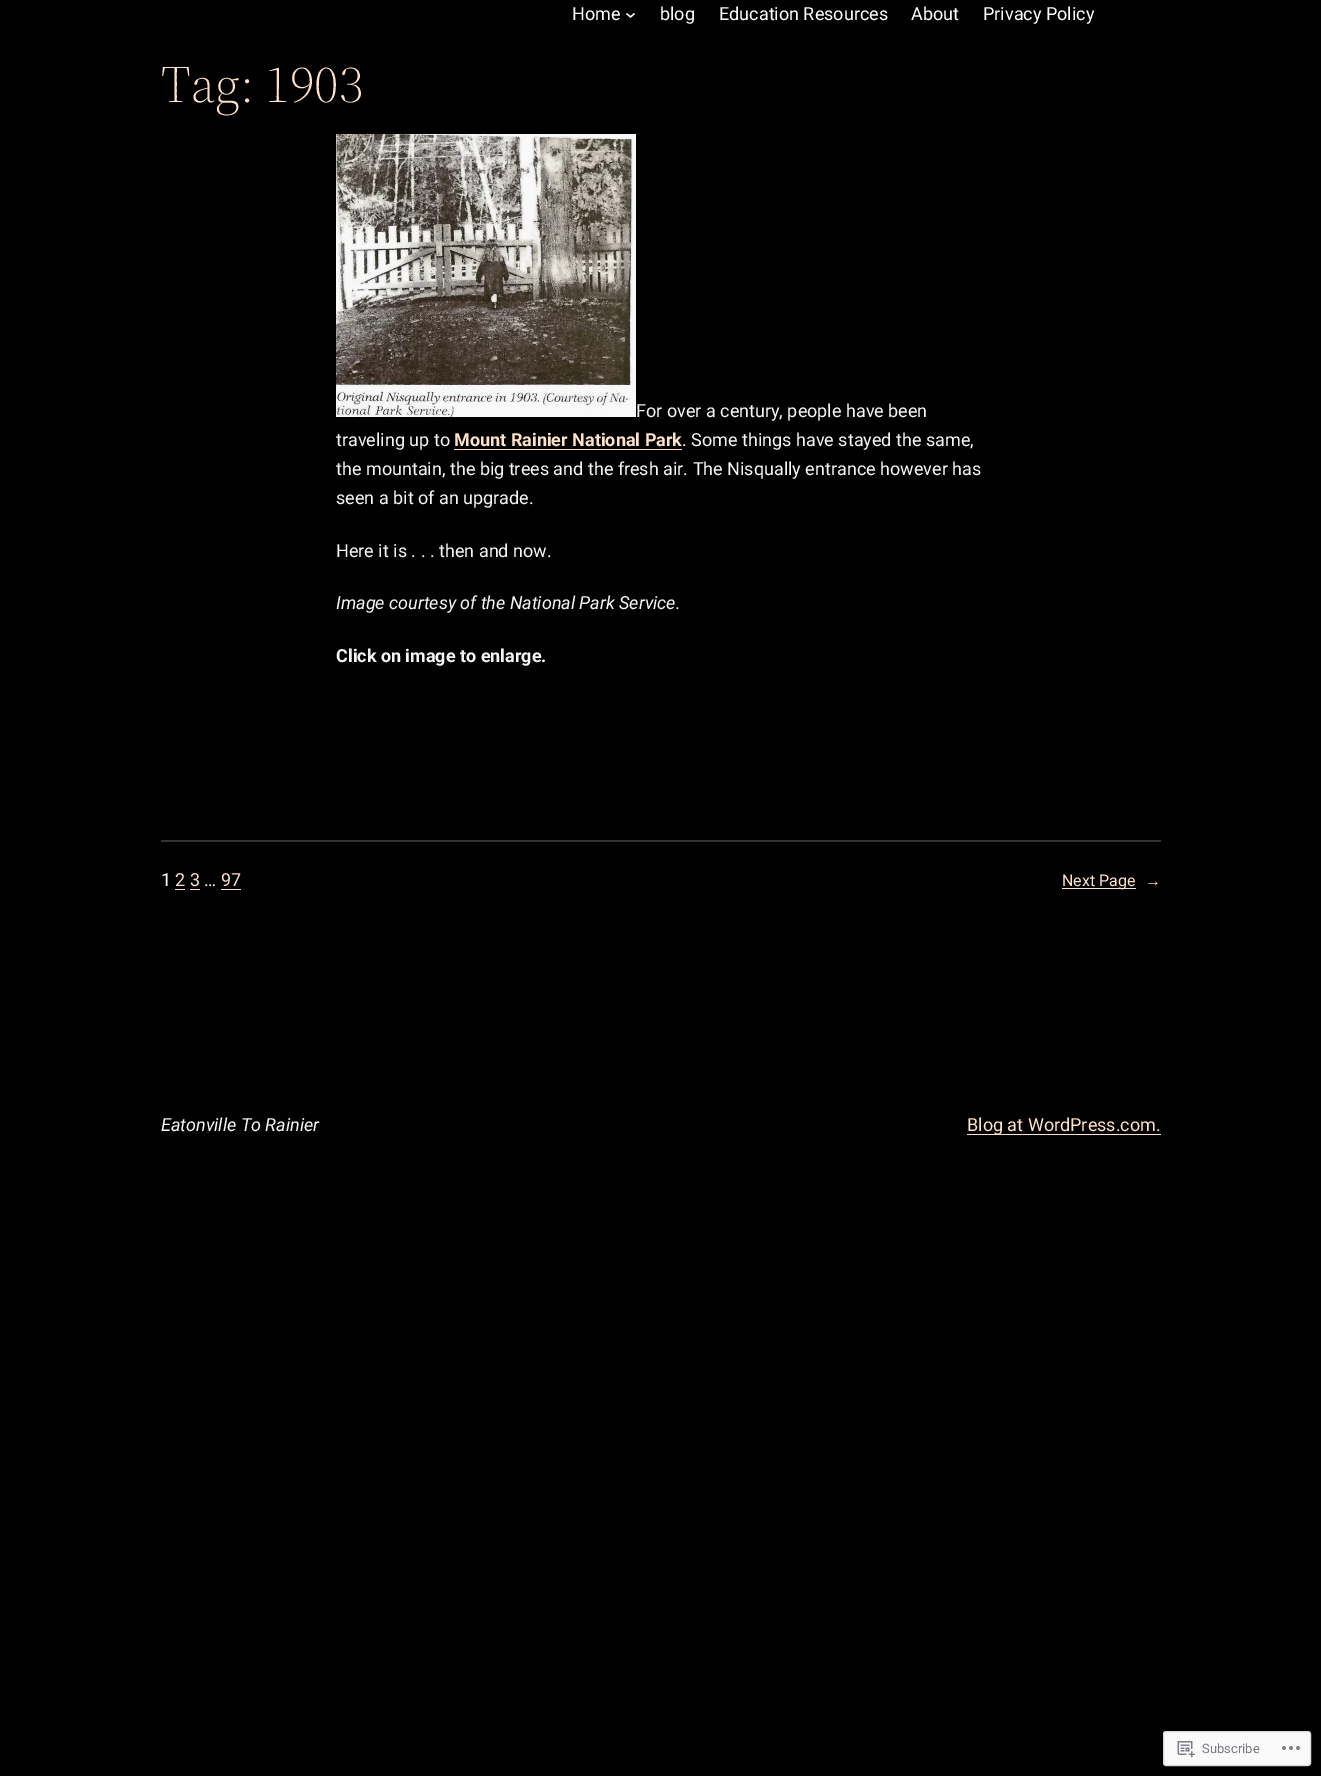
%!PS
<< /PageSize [1321 1776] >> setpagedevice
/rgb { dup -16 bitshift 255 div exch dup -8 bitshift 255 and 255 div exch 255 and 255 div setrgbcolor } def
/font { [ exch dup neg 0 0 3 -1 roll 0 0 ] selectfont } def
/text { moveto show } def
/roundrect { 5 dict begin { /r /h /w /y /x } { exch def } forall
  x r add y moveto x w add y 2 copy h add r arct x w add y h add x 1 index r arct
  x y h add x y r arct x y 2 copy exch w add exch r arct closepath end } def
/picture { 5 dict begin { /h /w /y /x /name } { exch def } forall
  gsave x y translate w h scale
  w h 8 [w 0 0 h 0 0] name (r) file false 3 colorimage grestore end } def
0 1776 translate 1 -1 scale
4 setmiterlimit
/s1 { /Roboto-Regular 18 font 16#FFFFFF rgb } def
/s2 { /SourceSerif4-Light 52 font 16#FFE2C7 rgb } def
/s3 { /Roboto-Regular 18 font 16#F6F6F6 rgb } def
/s4 { /Roboto-Bold 18 font 16#FFE2C7 rgb } def
/s5 { /Roboto-Italic 18 font 16#F6F6F6 rgb } def
/s6 { /Roboto-Bold 18 font 16#F6F6F6 rgb } def
/s7 { /Roboto-Regular 18 font 16#FFE2C7 rgb } def
/s8 { /Roboto-Regular 16 font 16#FFE2C7 rgb } def
/s9 { /LiberationSans-Regular 16 font 16#FFE2C7 rgb } def
/s10 { /Roboto-Regular 13 font 16#767A7F rgb } def
16#000000 rgb
0 0 1321 1776 rectfill
s1
(Home) 572 20 text
1.3 setlinewidth
626.5 13.5 moveto 630.5 17 lineto 634.5 13.5 lineto stroke
(blog) 660 20 text
(Education Resources) 719 20 text
(About) 911 20 text
(Privacy Policy) 983 20 text
s2
(Tag: 1903) 161 102 text
(pic1.raw) 336 134 300 283 picture
s3
(For over a century, people have been) 636 417 text
(traveling up to) 336 446 text
s4
(Mount Rainier National Park) 454 446 text
454 449 228 1 rectfill
s3
(. Some things have stayed the same,) 682 446 text
(the mountain, the big trees and the fresh air. The Nisqually entrance however has) 336 475 text
(seen a bit of an upgrade.) 336 504 text
(Here it is . . . then and now.) 336 557 text
s5
(Image courtesy of the National Park Service.) 336 609 text
s6
(Click on image to enlarge.) 336 662 text
16#333333 rgb
161 840 1000 2 rectfill
s3
(1) 161 886 text
s7
(2 3) 175 886 text
175 889 10 1 rectfill
s3
(…) 204 886 text
s7
(97) 221 886 text
221 889 20 1 rectfill
190 889 10 1 rectfill
1062 888 74 1 rectfill
s8
(Next Page) 1062 886 text
s9
(→) 1145 886 text
s5
(Eatonville To Rainier) 161 1131 text
16#FFE2C7 rgb
967 1134 194 1 rectfill
s7
(Blog at WordPress.com.) 967 1131 text
16#FAFAFA rgb
1163.5 1731.5 147 34 2.5 roundrect gsave fill grestore
16#D8D8DA rgb
1 setlinewidth
stroke
(pic2.raw) 1177 1741 18 17 picture
s10
(Subscribe) 1202 1753 text
(pic3.raw) 1282 1746 18 4 picture
showpage
